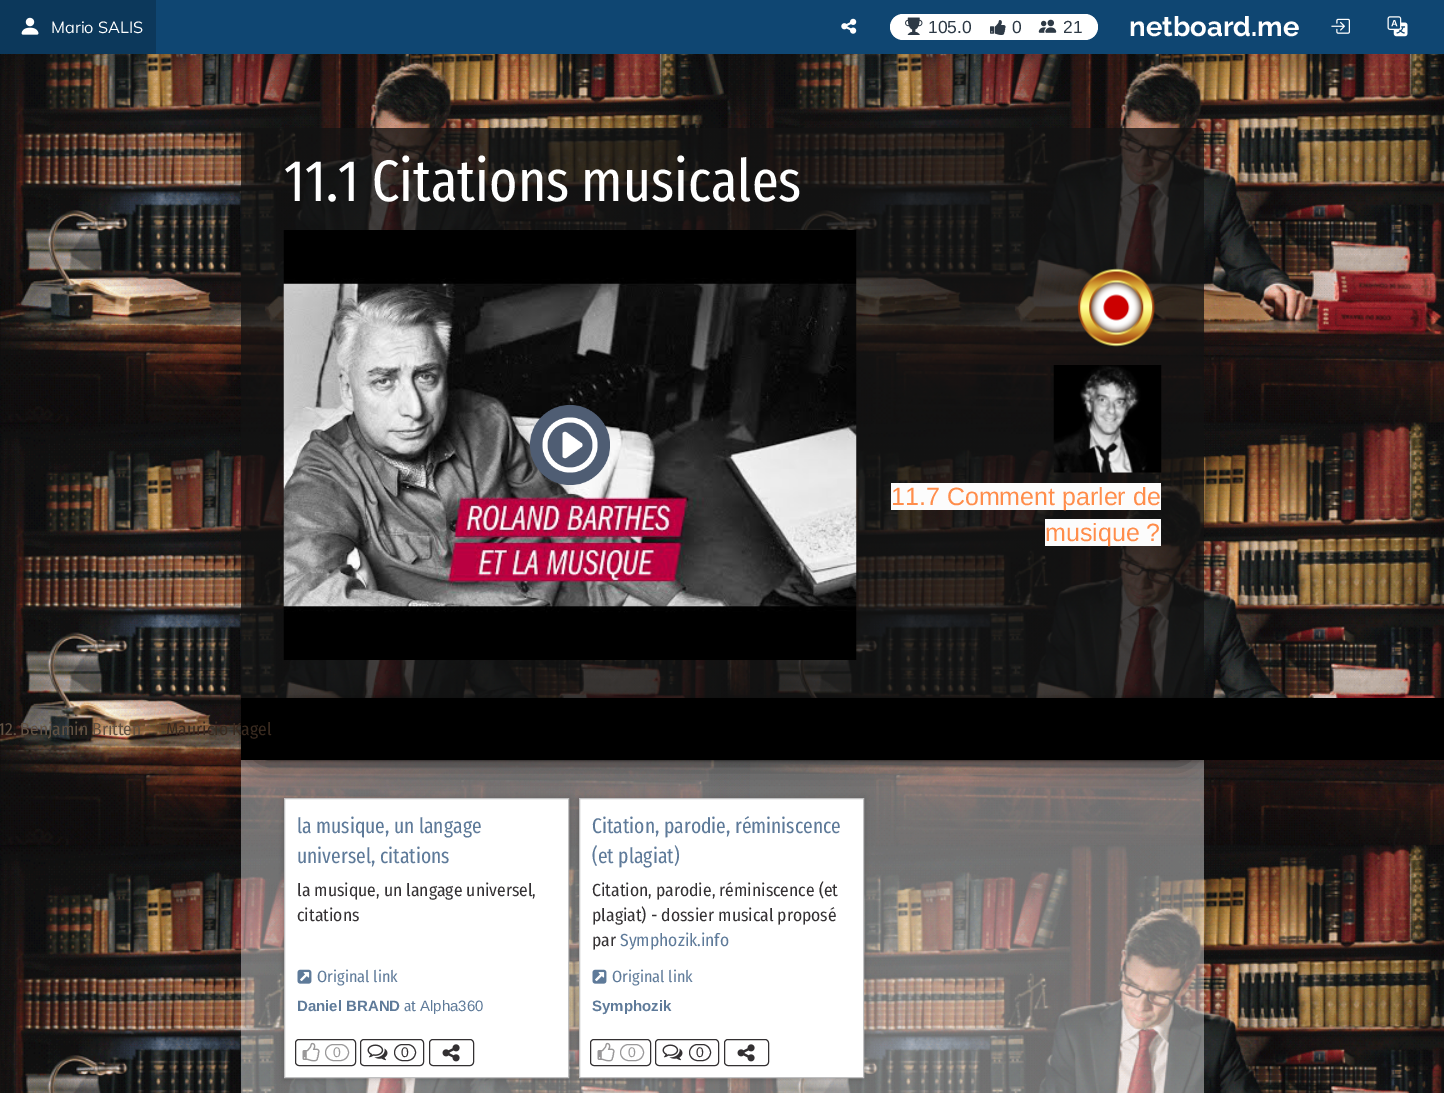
%!PS
<< /PageSize [1444 1093] /PageUsesTransparency true >> setpagedevice
/rgb { dup -16 bitshift 255 div exch dup -8 bitshift 255 and 255 div exch 255 and 255 div setrgbcolor } def
/font { [ exch dup neg 0 0 3 -1 roll 0 0 ] selectfont } def
/text { moveto show } def
/alpha { dup .setfillconstantalpha .setstrokeconstantalpha } def
/roundrect { 5 dict begin { /r /h /w /y /x } { exch def } forall
  x r add y moveto x w add y 2 copy h add r arct x w add y h add x 1 index r arct
  x y h add x y r arct x y 2 copy exch w add exch r arct closepath end } def
/shadow { 12 dict begin { /a /b /q /h /w /y /x } { exch def } forall gsave /was 0 def
  9 -2 -9 { dup b mul 4 div /e exch def 1 sub .425 mul 2.718 exch exp 1 add a .99 .min exch div /now exch def
    1 1 now sub 1 was sub div sub alpha /was now def
    w h .min e 2 mul add 0 gt { x e sub y e sub w e 2 mul add h e 2 mul add
      q e add b .6 mul add w h .min 2 div e add .min 0 .max roundrect fill } if } for grestore end } def
/picture { 5 dict begin { /h /w /y /x /name } { exch def } forall
  gsave x y translate w h scale
  w h 8 [w 0 0 h 0 0] name (r) file false 3 colorimage grestore end } def
0 .pushpdf14devicefilter
0 1093 translate 1 -1 scale
4 setmiterlimit
/s1 { /Mulish-Regular 16.25 font 16#FFFFFF rgb } def
/s2 { /LiberationSans-Regular 17.5 font 16#2D3945 rgb } def
/s3 { /Raleway-Bold 27.5 font 16#FFFFFF rgb } def
/s4 { /FiraSansExtraCondensed-Regular 58.75 font 16#FFFFFF rgb } def
/s5 { /LiberationSans-Regular 25 font 16#FF8D4B rgb } def
/s6 { /FiraSansCondensed-Regular 17.5 font 16#615142 rgb } def
/s7 { /FiraSansCondensed-Regular 17.5 font 16#392A1F rgb } def
/s8 { /FiraSansExtraCondensed-Regular 21.25 font 16#5E7A99 rgb } def
/s9 { /FiraSansCondensed-Regular 17.5 font 16#333032 rgb } def
/s10 { /FiraSansCondensed-Regular 16.25 font 16#5E7A99 rgb } def
/s11 { /LiberationSans-Bold 15 font 16#5E7A99 rgb } def
/s12 { /FiraSansCondensed-Regular 15 font 16#5E7A99 rgb } def
/s13 { /LiberationSans-Regular 15 font 16#5E7A99 rgb } def
/s14 { /LiberationSans-Regular 14 font 16#999899 rgb } def
/s15 { /LiberationSans-Regular 14 font 16#333032 rgb } def
/s16 { /FiraSansCondensed-Regular 17.5 font 16#5E7A99 rgb } def
16#FFFFFF rgb
0 0 1444 1093 rectfill
16#0F4672 rgb
156 0 1288 54 rectfill
16#0C385B rgb
0 0 156 54 rectfill
(pic1.raw) 21 17 18 18 picture
s1
(Mario SALIS) 51 33 text
(pic2.raw) 841 18 16 16 picture
890 14 208 26 13 roundrect fill
(pic3.raw) 905 17 18 18 picture
s2
(105.0) 928 33 text
(pic4.raw) 990 20 16 15 picture
(0) 1012 33 text
(pic5.raw) 1038 19 19 14 picture
(21) 1063 33 text
s3
(netboard.me) 1129 36 text
(pic6.raw) 1331 18 19 16 picture
(pic7.raw) 1387 16 21 21 picture
(pic8.raw) 0 54 1444 1039 picture
0.78 alpha
16#121212 rgb
246 128 moveto 1199 128 lineto 1202 128 1204 130 1204 133 curveto 1204 698 lineto 241 698 lineto 241 133 lineto 241 130 243 128 246 128 curveto closepath fill
1 alpha
s4
(11.1 Citations musicales) 284 201 text
(pic9.raw) 283 230 574 430 picture
(pic10.raw) 1077 268 79 79 picture
(pic11.raw) 1053 365 109 108 picture
16#FCFCFC rgb
891 483 270 27 rectfill
s5
(11.7 Comment parler de) 891 505 text
16#FCFCFC rgb
1045 519 116 27 rectfill
s5
(musique ?) 1045 541 text
0.41 alpha
16#FFFFFF rgb
241 760 963 333 rectfill
1 alpha
16#000000 rgb
241 699 963 62 0 2.5 0.3 shadow
254 723 937 35 13 12.5 0.8 shadow
241 698 1203 62 rectfill
s6
(12. Benjamin Britten) -2 735 text
s7
(Mauricio Kagel) 166 735 text
16#000000 rgb
284 799 285 280 0 3 0.2 shadow
16#FFFFFF rgb
284.5 798.5 moveto 568.5 798.5 lineto 568.5 1077.5 lineto 284.5 1077.5 lineto closepath gsave fill grestore
16#C0C0C1 rgb
stroke
s8
(la musique, un langage) 297 833 text
(universel, citations) 297 863 text
s9
(la musique, un langage universel,) 297 896 text
(citations) 297 921 text
(pic12.raw) 297 969 15 15 picture
s10
(Original link) 317 982 text
s11
(Daniel BRAND) 297 1011 text
s12
(at) 404 1011 text
s13
(Alpha360) 420 1011 text
16#333032 rgb
295.5 1039.5 60 26 3.5 roundrect stroke
(pic13.raw) 302 1042 18 20 picture
16#999899 rgb
325.5 1044.5 23 16 8 roundrect stroke
s14
(0) 333 1057 text
16#333032 rgb
360.5 1039.5 63 26 3.5 roundrect stroke
(pic14.raw) 367 1044 21 17 picture
394.5 1044.5 21 16 8 roundrect stroke
(0) 401 1057 text
429.5 1039.5 44 26 3.5 roundrect stroke
(pic15.raw) 442 1044 18 18 picture
16#000000 rgb
579 799 285 280 0 3 0.2 shadow
16#FFFFFF rgb
579.5 798.5 moveto 863.5 798.5 lineto 863.5 1077.5 lineto 579.5 1077.5 lineto closepath gsave fill grestore
16#C0C0C1 rgb
stroke
s8
(Citation, parodie, réminiscence) 592 833 text
(\(et plagiat\)) 592 863 text
s9
(Citation, parodie, réminiscence \(et) 592 896 text
(plagiat\) - dossier musical proposé) 592 921 text
(par) 592 946 text
s16
(Symphozik.info) 620 946 text
(pic12.raw) 592 969 15 15 picture
s10
(Original link) 612 982 text
s11
(Symphozik) 592 1011 text
16#333032 rgb
590.5 1039.5 60 26 3.5 roundrect stroke
(pic13.raw) 597 1042 18 20 picture
16#999899 rgb
620.5 1044.5 23 16 8 roundrect stroke
s14
(0) 628 1057 text
16#333032 rgb
655.5 1039.5 63 26 3.5 roundrect stroke
(pic14.raw) 662 1044 21 17 picture
689.5 1044.5 21 16 8 roundrect stroke
(0) 696 1057 text
724.5 1039.5 44 26 3.5 roundrect stroke
(pic15.raw) 737 1044 18 18 picture
.poppdf14devicefilter showpage
